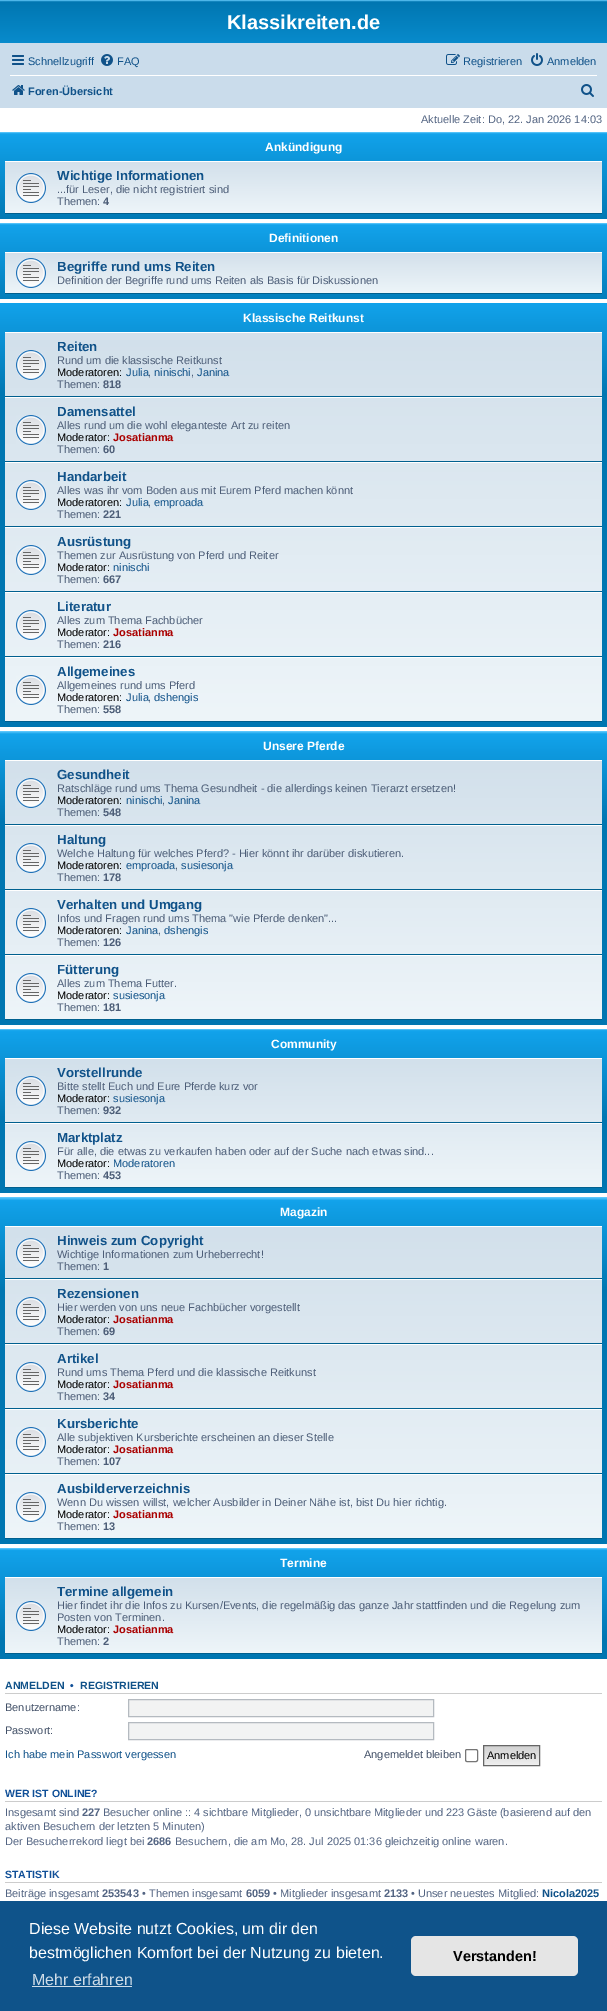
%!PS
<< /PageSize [607 2011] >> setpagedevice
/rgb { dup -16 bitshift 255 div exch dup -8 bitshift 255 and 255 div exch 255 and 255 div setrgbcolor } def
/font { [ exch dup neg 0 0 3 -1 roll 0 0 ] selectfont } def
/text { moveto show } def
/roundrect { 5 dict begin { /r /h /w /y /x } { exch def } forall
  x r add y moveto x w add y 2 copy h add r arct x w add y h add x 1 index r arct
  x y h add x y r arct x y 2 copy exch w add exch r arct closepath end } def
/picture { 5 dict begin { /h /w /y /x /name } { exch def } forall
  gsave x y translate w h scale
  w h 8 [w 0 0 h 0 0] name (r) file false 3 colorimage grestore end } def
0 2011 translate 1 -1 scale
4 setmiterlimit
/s1 { /LiberationSans-Bold 20 font 16#FFFFFF rgb } def
/s2 { /LiberationSans-Regular 11 font 16#105289 rgb } def
/s3 { /LiberationSans-Bold 11 font 16#105289 rgb } def
/s4 { /LiberationSans-Regular 11 font 16#536482 rgb } def
/s5 { /LiberationSans-Bold 12 font 16#FFFFFF rgb } def
/s6 { /LiberationSans-Bold 13.25 font 16#105289 rgb } def
/s7 { /LiberationSans-Regular 11 font 16#4C5D77 rgb } def
/s8 { /LiberationSans-Bold 11 font 16#4C5D77 rgb } def
/s9 { /LiberationSans-Regular 11 font 16#000000 rgb } def
/s10 { /LiberationSans-Bold 11 font 16#AA0000 rgb } def
/s11 { /LiberationSans-Bold 10.5 font 16#105289 rgb } def
/s12 { /LiberationSans-Bold 10.5 font 16#115098 rgb } def
/s13 { /LiberationSans-Regular 11 font 16#425067 rgb } def
/s14 { /LiberationSans-Bold 11 font 16#536482 rgb } def
/s15 { /LiberationSans-Regular 16 font 16#FFFFFF rgb } def
/s16 { /LiberationSans-Regular 16 font 16#CFDDE8 rgb } def
/s17 { /LiberationSans-Bold 14.5 font 16#000000 rgb } def
16#FFFFFF rgb
0 0 607 2011 rectfill
gsave 0 0 moveto 607 0 lineto 607 43 lineto 0 43 lineto closepath clip newpath
<< /ShadingType 2 /ColorSpace /DeviceRGB /Coords [304 0 304 92] /Extend [true true] /Function << /FunctionType 3 /Domain [0 1] /Functions [<< /FunctionType 2 /Domain [0 1] /C0 [0.416 0.808 1] /C1 [0 0.463 0.694] /N 1 >> << /FunctionType 2 /Domain [0 1] /C0 [0 0.463 0.694] /C1 [0.071 0.639 0.922] /N 1 >>] /Bounds [0.02] /Encode [0 1 0 1] >> >> shfill grestore
s1
(Klassikreiten.de) 227 29 text
16#CADCEB rgb
0 43 607 65 rectfill
(pic1.raw) 12 55 12 10 picture
s2
(Schnellzugriff) 28 65 text
(pic2.raw) 101 54 12 12 picture
(FAQ) 117 65 text
(pic3.raw) 446 54 14 11 picture
(Registrieren) 463 65 text
(pic4.raw) 531 53 12 13 picture
(Anmelden) 547 65 text
16#FFFFFF rgb
10 75 587 1 rectfill
(pic5.raw) 12 85 13 10 picture
s3
(Foren-Übersicht) 28 95 text
(pic6.raw) 581 84 13 13 picture
s4
(Aktuelle Zeit: Do, 22. Jan 2026 14:03) 421 123 text
gsave 0 132 moveto 607 132 lineto 607 219 lineto 0 219 lineto closepath clip newpath
<< /ShadingType 2 /ColorSpace /DeviceRGB /Coords [304 132 304 224] /Extend [true true] /Function << /FunctionType 3 /Domain [0 1] /Functions [<< /FunctionType 2 /Domain [0 1] /C0 [0.416 0.808 1] /C1 [0.071 0.639 0.922] /N 1 >> << /FunctionType 2 /Domain [0 1] /C0 [0.071 0.639 0.922] /C1 [0 0.463 0.694] /N 1 >>] /Bounds [0.02] /Encode [0 1 0 1] >> >> shfill grestore
s5
(Ankündigung) 265 151 text
gsave 5 162 moveto 602 162 lineto 602 213 lineto 5 213 lineto closepath clip newpath
<< /ShadingType 2 /ColorSpace /DeviceRGB /Coords [304 161 304 214] /Extend [true true] /Function << /FunctionType 2 /Domain [0 1] /C0 [0.824 0.878 0.922] /C1 [0.933 0.961 0.976] /N 1 >> >> shfill grestore
5 161 597 1 rectfill
16#00608F rgb
5 213 597 1 rectfill
(pic7.raw) 16 173 30 30 picture
s6
(Wichtige Informationen) 57 180 text
s7
(...für Leser, die nicht registriert sind) 57 193 text
(Themen:) 57 205 text
s8
(4) 103 205 text
gsave 0 223 moveto 607 223 lineto 607 299 lineto 0 299 lineto closepath clip newpath
<< /ShadingType 2 /ColorSpace /DeviceRGB /Coords [304 223 304 315] /Extend [true true] /Function << /FunctionType 3 /Domain [0 1] /Functions [<< /FunctionType 2 /Domain [0 1] /C0 [0.416 0.808 1] /C1 [0.071 0.639 0.922] /N 1 >> << /FunctionType 2 /Domain [0 1] /C0 [0.071 0.639 0.922] /C1 [0 0.463 0.694] /N 1 >>] /Bounds [0.02] /Encode [0 1 0 1] >> >> shfill grestore
s5
(Definitionen) 269 242 text
gsave 5 253 moveto 602 253 lineto 602 293 lineto 5 293 lineto closepath clip newpath
<< /ShadingType 2 /ColorSpace /DeviceRGB /Coords [304 252 304 294] /Extend [true true] /Function << /FunctionType 2 /Domain [0 1] /C0 [0.824 0.878 0.922] /C1 [0.933 0.961 0.976] /N 1 >> >> shfill grestore
5 252 597 1 rectfill
16#00608F rgb
5 293 597 1 rectfill
(pic8.raw) 16 258 30 30 picture
s6
(Begriffe rund ums Reiten) 57 271 text
s7
(Definition der Begriffe rund ums Reiten als Basis für Diskussionen) 57 284 text
gsave 0 303 moveto 607 303 lineto 607 727 lineto 0 727 lineto closepath clip newpath
<< /ShadingType 2 /ColorSpace /DeviceRGB /Coords [304 303 304 727] /Extend [true true] /Function << /FunctionType 3 /Domain [0 1] /Functions [<< /FunctionType 2 /Domain [0 1] /C0 [0.071 0.639 0.922] /C1 [0 0.463 0.694] /N 1 >> << /FunctionType 2 /Domain [0 1] /C0 [0 0.463 0.694] /C1 [0 0.463 0.694] /N 1 >>] /Bounds [0.22] /Encode [0 1 0 1] >> >> shfill grestore
s5
(Klassische Reitkunst) 243 322 text
gsave 5 333 moveto 602 333 lineto 602 721 lineto 5 721 lineto closepath clip newpath
<< /ShadingType 2 /ColorSpace /DeviceRGB /Coords [304 332 304 722] /Extend [true true] /Function << /FunctionType 2 /Domain [0 1] /C0 [0.824 0.878 0.922] /C1 [0.933 0.961 0.976] /N 1 >> >> shfill grestore
5 332 597 1 rectfill
16#00608F rgb
5 396 597 1 rectfill
(pic9.raw) 16 350 30 30 picture
s6
(Reiten) 57 351 text
s7
(Rund um die klassische Reitkunst) 57 364 text
s9
(Moderatoren:) 57 376 text
s2
(Julia) 126 376 text
s7
(,) 148 376 text
s2
(ninischi) 154 376 text
s7
(,) 191 376 text
s2
(Janina) 197 376 text
s7
(Themen:) 57 388 text
s8
(818) 103 388 text
16#FFFFFF rgb
5 397 597 1 rectfill
16#00608F rgb
5 461 597 1 rectfill
(pic10.raw) 16 415 30 30 picture
s6
(Damensattel) 57 416 text
s7
(Alles rund um die wohl eleganteste Art zu reiten) 57 429 text
s9
(Moderator:) 57 441 text
s10
(Josatianma) 113 441 text
s7
(Themen:) 57 453 text
s8
(60) 103 453 text
16#FFFFFF rgb
5 462 597 1 rectfill
16#00608F rgb
5 526 597 1 rectfill
(pic11.raw) 16 480 30 30 picture
s6
(Handarbeit) 57 481 text
s7
(Alles was ihr vom Boden aus mit Eurem Pferd machen könnt) 57 494 text
s9
(Moderatoren:) 57 506 text
s2
(Julia) 126 506 text
s7
(,) 148 506 text
s2
(emproada) 154 506 text
s7
(Themen:) 57 518 text
s8
(221) 103 518 text
16#FFFFFF rgb
5 527 597 1 rectfill
16#00608F rgb
5 591 597 1 rectfill
(pic12.raw) 16 545 30 30 picture
s6
(Ausrüstung) 57 546 text
s7
(Themen zur Ausrüstung von Pferd und Reiter) 57 559 text
s9
(Moderator:) 57 571 text
s2
(ninischi) 113 571 text
s7
(Themen:) 57 583 text
s8
(667) 103 583 text
16#FFFFFF rgb
5 592 597 1 rectfill
16#00608F rgb
5 656 597 1 rectfill
(pic13.raw) 16 610 30 30 picture
s6
(Literatur) 57 611 text
s7
(Alles zum Thema Fachbücher) 57 624 text
s9
(Moderator:) 57 636 text
s10
(Josatianma) 113 636 text
s7
(Themen:) 57 648 text
s8
(216) 103 648 text
16#FFFFFF rgb
5 657 597 1 rectfill
16#00608F rgb
5 721 597 1 rectfill
(pic14.raw) 16 675 30 30 picture
s6
(Allgemeines) 57 676 text
s7
(Allgemeines rund ums Pferd) 57 689 text
s9
(Moderatoren:) 57 701 text
s2
(Julia) 126 701 text
s7
(,) 148 701 text
s2
(dshengis) 154 701 text
s7
(Themen:) 57 713 text
s8
(558) 103 713 text
gsave 0 731 moveto 607 731 lineto 607 1025 lineto 0 1025 lineto closepath clip newpath
<< /ShadingType 2 /ColorSpace /DeviceRGB /Coords [304 731 304 1025] /Extend [true true] /Function << /FunctionType 3 /Domain [0 1] /Functions [<< /FunctionType 2 /Domain [0 1] /C0 [0.416 0.808 1] /C1 [0.071 0.639 0.922] /N 1 >> << /FunctionType 2 /Domain [0 1] /C0 [0.071 0.639 0.922] /C1 [0 0.463 0.694] /N 1 >> << /FunctionType 2 /Domain [0 1] /C0 [0 0.463 0.694] /C1 [0 0.463 0.694] /N 1 >>] /Bounds [0.01 0.31] /Encode [0 1 0 1 0 1] >> >> shfill grestore
s5
(Unsere Pferde) 263 750 text
gsave 5 761 moveto 602 761 lineto 602 1019 lineto 5 1019 lineto closepath clip newpath
<< /ShadingType 2 /ColorSpace /DeviceRGB /Coords [304 760 304 1020] /Extend [true true] /Function << /FunctionType 2 /Domain [0 1] /C0 [0.824 0.878 0.922] /C1 [0.933 0.961 0.976] /N 1 >> >> shfill grestore
5 760 597 1 rectfill
16#00608F rgb
5 824 597 1 rectfill
(pic15.raw) 16 778 30 30 picture
s6
(Gesundheit) 57 779 text
s7
(Ratschläge rund ums Thema Gesundheit - die allerdings keinen Tierarzt ersetzen!) 57 792 text
s9
(Moderatoren:) 57 804 text
s2
(ninischi) 126 804 text
s7
(,) 162 804 text
s2
(Janina) 168 804 text
s7
(Themen:) 57 816 text
s8
(548) 103 816 text
16#FFFFFF rgb
5 825 597 1 rectfill
16#00608F rgb
5 889 597 1 rectfill
(pic16.raw) 16 843 30 30 picture
s6
(Haltung) 57 844 text
s7
(Welche Haltung für welches Pferd? - Hier könnt ihr darüber diskutieren.) 57 857 text
s9
(Moderatoren:) 57 869 text
s2
(emproada) 126 869 text
s7
(,) 175 869 text
s2
(susiesonja) 181 869 text
s7
(Themen:) 57 881 text
s8
(178) 103 881 text
16#FFFFFF rgb
5 890 597 1 rectfill
16#00608F rgb
5 954 597 1 rectfill
(pic17.raw) 16 908 30 30 picture
s6
(Verhalten und Umgang) 57 909 text
s7
(Infos und Fragen rund ums Thema "wie Pferde denken"...) 57 922 text
s9
(Moderatoren:) 57 934 text
s2
(Janina) 126 934 text
s7
(,) 158 934 text
s2
(dshengis) 164 934 text
s7
(Themen:) 57 946 text
s8
(126) 103 946 text
16#FFFFFF rgb
5 955 597 1 rectfill
16#00608F rgb
5 1019 597 1 rectfill
(pic18.raw) 16 973 30 30 picture
s6
(Fütterung) 57 974 text
s7
(Alles zum Thema Futter.) 57 987 text
s9
(Moderator:) 57 999 text
s2
(susiesonja) 113 999 text
s7
(Themen:) 57 1011 text
s8
(181) 103 1011 text
gsave 0 1029 moveto 607 1029 lineto 607 1193 lineto 0 1193 lineto closepath clip newpath
<< /ShadingType 2 /ColorSpace /DeviceRGB /Coords [304 1029 304 1193] /Extend [true true] /Function << /FunctionType 3 /Domain [0 1] /Functions [<< /FunctionType 2 /Domain [0 1] /C0 [0.416 0.808 1] /C1 [0.071 0.639 0.922] /N 1 >> << /FunctionType 2 /Domain [0 1] /C0 [0.071 0.639 0.922] /C1 [0 0.463 0.694] /N 1 >> << /FunctionType 2 /Domain [0 1] /C0 [0 0.463 0.694] /C1 [0 0.463 0.694] /N 1 >>] /Bounds [0.01 0.56] /Encode [0 1 0 1 0 1] >> >> shfill grestore
s5
(Community) 271 1048 text
gsave 5 1059 moveto 602 1059 lineto 602 1187 lineto 5 1187 lineto closepath clip newpath
<< /ShadingType 2 /ColorSpace /DeviceRGB /Coords [304 1058 304 1188] /Extend [true true] /Function << /FunctionType 2 /Domain [0 1] /C0 [0.824 0.878 0.922] /C1 [0.933 0.961 0.976] /N 1 >> >> shfill grestore
5 1058 597 1 rectfill
16#00608F rgb
5 1122 597 1 rectfill
(pic19.raw) 16 1076 30 30 picture
s6
(Vorstellrunde) 57 1077 text
s7
(Bitte stellt Euch und Eure Pferde kurz vor) 57 1090 text
s9
(Moderator:) 57 1102 text
s2
(susiesonja) 113 1102 text
s7
(Themen:) 57 1114 text
s8
(932) 103 1114 text
16#FFFFFF rgb
5 1123 597 1 rectfill
16#00608F rgb
5 1187 597 1 rectfill
(pic20.raw) 16 1141 30 30 picture
s6
(Marktplatz) 57 1142 text
s7
(Für alle, die etwas zu verkaufen haben oder auf der Suche nach etwas sind...) 57 1155 text
s9
(Moderator:) 57 1167 text
s2
(Moderatoren) 113 1167 text
s7
(Themen:) 57 1179 text
s8
(453) 103 1179 text
gsave 0 1197 moveto 607 1197 lineto 607 1544 lineto 0 1544 lineto closepath clip newpath
<< /ShadingType 2 /ColorSpace /DeviceRGB /Coords [304 1197 304 1544] /Extend [true true] /Function << /FunctionType 3 /Domain [0 1] /Functions [<< /FunctionType 2 /Domain [0 1] /C0 [0.416 0.808 1] /C1 [0.071 0.639 0.922] /N 1 >> << /FunctionType 2 /Domain [0 1] /C0 [0.071 0.639 0.922] /C1 [0 0.463 0.694] /N 1 >> << /FunctionType 2 /Domain [0 1] /C0 [0 0.463 0.694] /C1 [0 0.463 0.694] /N 1 >>] /Bounds [0.01 0.27] /Encode [0 1 0 1 0 1] >> >> shfill grestore
s5
(Magazin) 280 1216 text
gsave 5 1227 moveto 602 1227 lineto 602 1538 lineto 5 1538 lineto closepath clip newpath
<< /ShadingType 2 /ColorSpace /DeviceRGB /Coords [304 1226 304 1539] /Extend [true true] /Function << /FunctionType 2 /Domain [0 1] /C0 [0.824 0.878 0.922] /C1 [0.933 0.961 0.976] /N 1 >> >> shfill grestore
5 1226 597 1 rectfill
16#00608F rgb
5 1278 597 1 rectfill
(pic21.raw) 16 1238 30 30 picture
s6
(Hinweis zum Copyright) 57 1245 text
s7
(Wichtige Informationen zum Urheberrecht!) 57 1258 text
(Themen:) 57 1270 text
s8
(1) 103 1270 text
16#FFFFFF rgb
5 1279 597 1 rectfill
16#00608F rgb
5 1343 597 1 rectfill
(pic22.raw) 16 1297 30 30 picture
s6
(Rezensionen) 57 1298 text
s7
(Hier werden von uns neue Fachbücher vorgestellt) 57 1311 text
s9
(Moderator:) 57 1323 text
s10
(Josatianma) 113 1323 text
s7
(Themen:) 57 1335 text
s8
(69) 103 1335 text
16#FFFFFF rgb
5 1344 597 1 rectfill
16#00608F rgb
5 1408 597 1 rectfill
(pic23.raw) 16 1362 30 30 picture
s6
(Artikel) 57 1363 text
s7
(Rund ums Thema Pferd und die klassische Reitkunst) 57 1376 text
s9
(Moderator:) 57 1388 text
s10
(Josatianma) 113 1388 text
s7
(Themen:) 57 1400 text
s8
(34) 103 1400 text
16#FFFFFF rgb
5 1409 597 1 rectfill
16#00608F rgb
5 1473 597 1 rectfill
(pic24.raw) 16 1427 30 30 picture
s6
(Kursberichte) 57 1428 text
s7
(Alle subjektiven Kursberichte erscheinen an dieser Stelle) 57 1441 text
s9
(Moderator:) 57 1453 text
s10
(Josatianma) 113 1453 text
s7
(Themen:) 57 1465 text
s8
(107) 103 1465 text
16#FFFFFF rgb
5 1474 597 1 rectfill
16#00608F rgb
5 1538 597 1 rectfill
(pic25.raw) 16 1492 30 30 picture
s6
(Ausbilderverzeichnis) 57 1493 text
s7
(Wenn Du wissen willst, welcher Ausbilder in Deiner Nähe ist, bist Du hier richtig.) 57 1506 text
s9
(Moderator:) 57 1518 text
s10
(Josatianma) 113 1518 text
s7
(Themen:) 57 1530 text
s8
(13) 103 1530 text
gsave 0 1548 moveto 607 1548 lineto 607 1659 lineto 0 1659 lineto closepath clip newpath
<< /ShadingType 2 /ColorSpace /DeviceRGB /Coords [304 1548 304 1659] /Extend [true true] /Function << /FunctionType 3 /Domain [0 1] /Functions [<< /FunctionType 2 /Domain [0 1] /C0 [0.416 0.808 1] /C1 [0.071 0.639 0.922] /N 1 >> << /FunctionType 2 /Domain [0 1] /C0 [0.071 0.639 0.922] /C1 [0 0.463 0.694] /N 1 >> << /FunctionType 2 /Domain [0 1] /C0 [0 0.463 0.694] /C1 [0 0.463 0.694] /N 1 >>] /Bounds [0.02 0.83] /Encode [0 1 0 1 0 1] >> >> shfill grestore
s5
(Termine) 280 1567 text
gsave 5 1578 moveto 602 1578 lineto 602 1653 lineto 5 1653 lineto closepath clip newpath
<< /ShadingType 2 /ColorSpace /DeviceRGB /Coords [304 1577 304 1654] /Extend [true true] /Function << /FunctionType 2 /Domain [0 1] /C0 [0.824 0.878 0.922] /C1 [0.933 0.961 0.976] /N 1 >> >> shfill grestore
5 1577 597 1 rectfill
16#00608F rgb
5 1653 597 1 rectfill
(pic26.raw) 16 1601 30 30 picture
s6
(Termine allgemein) 57 1596 text
s7
(Hier findet ihr die Infos zu Kursen/Events, die regelmäßig das ganze Jahr stattfinden und die Regelung zum) 57 1609 text
(Posten von Terminen.) 57 1621 text
s9
(Moderator:) 57 1633 text
s10
(Josatianma) 113 1633 text
s7
(Themen:) 57 1645 text
s8
(2) 103 1645 text
16#CCCCCC rgb
5 1693 597 1 rectfill
s11
(ANMELDEN) 5 1689 text
s12
(•) 70 1689 text
s11
(REGISTRIEREN) 80 1689 text
s13
(Benutzername:) 5 1711 text
16#F2F3F3 rgb
128.5 1699.5 moveto 433.5 1699.5 lineto 433.5 1716.5 lineto 128.5 1716.5 lineto closepath gsave fill grestore
16#B4BAC0 rgb
stroke
s13
(Passwort:) 5 1734 text
16#F2F3F3 rgb
128.5 1722.5 moveto 433.5 1722.5 lineto 433.5 1739.5 lineto 128.5 1739.5 lineto closepath gsave fill grestore
16#B4BAC0 rgb
stroke
s2
(Ich habe mein Passwort vergessen) 5 1758 text
s13
(Angemeldet bleiben) 364 1758 text
16#767676 rgb
465.5 1749.5 12 12 1.5 roundrect stroke
gsave 484 1746 moveto 539 1746 lineto 539 1765 lineto 484 1765 lineto closepath clip newpath
<< /ShadingType 2 /ColorSpace /DeviceRGB /Coords [512 1746 512 1765] /Extend [true true] /Function << /FunctionType 2 /Domain [0 1] /C0 [0.824 0.824 0.824] /C1 [0.937 0.937 0.937] /N 1 >> >> shfill grestore
16#666666 rgb
483.5 1745.5 56 20 rectstroke
s9
(Anmelden) 487 1759 text
16#CCCCCC rgb
5 1801 597 1 rectfill
s12
(WER IST ONLINE?) 5 1797 text
s4
(Insgesamt sind) 5 1816 text
s14
(227) 82 1816 text
s4
(Besucher online :: 4 sichtbare Mitglieder, 0 unsichtbare Mitglieder und 223 Gäste \(basierend auf den) 103 1816 text
(aktiven Besuchern der letzten 5 Minuten\)) 5 1830 text
(Der Besucherrekord liegt bei) 5 1845 text
s14
(2686) 147 1845 text
s4
(Besuchern, die am Mo, 28. Jul 2025 01:36 gleichzeitig online waren.) 175 1845 text
16#CCCCCC rgb
5 1882 597 1 rectfill
s12
(STATISTIK) 5 1878 text
s4
(Beiträge insgesamt) 5 1897 text
s14
(253543) 102 1897 text
s4
(• Themen insgesamt) 142 1897 text
s14
(6059) 246 1897 text
s4
(• Mitglieder insgesamt) 273 1897 text
s14
(2133) 384 1897 text
s4
(• Unser neuestes Mitglied:) 411 1897 text
s3
(Nicola2025) 542 1897 text
16#0F538A rgb
0 1901 607 110 rectfill
s15
(Diese Website nutzt Cookies, um dir den) 29 1934 text
(bestmöglichen Komfort bei der Nutzung zu bieten.) 29 1958 text
s16
(Mehr erfahren) 32 1985 text
32 1986 100 1 rectfill
16#E5E5E5 rgb
411 1936 167 40 5 roundrect fill
s17
(Verstanden!) 453 1961 text
showpage
